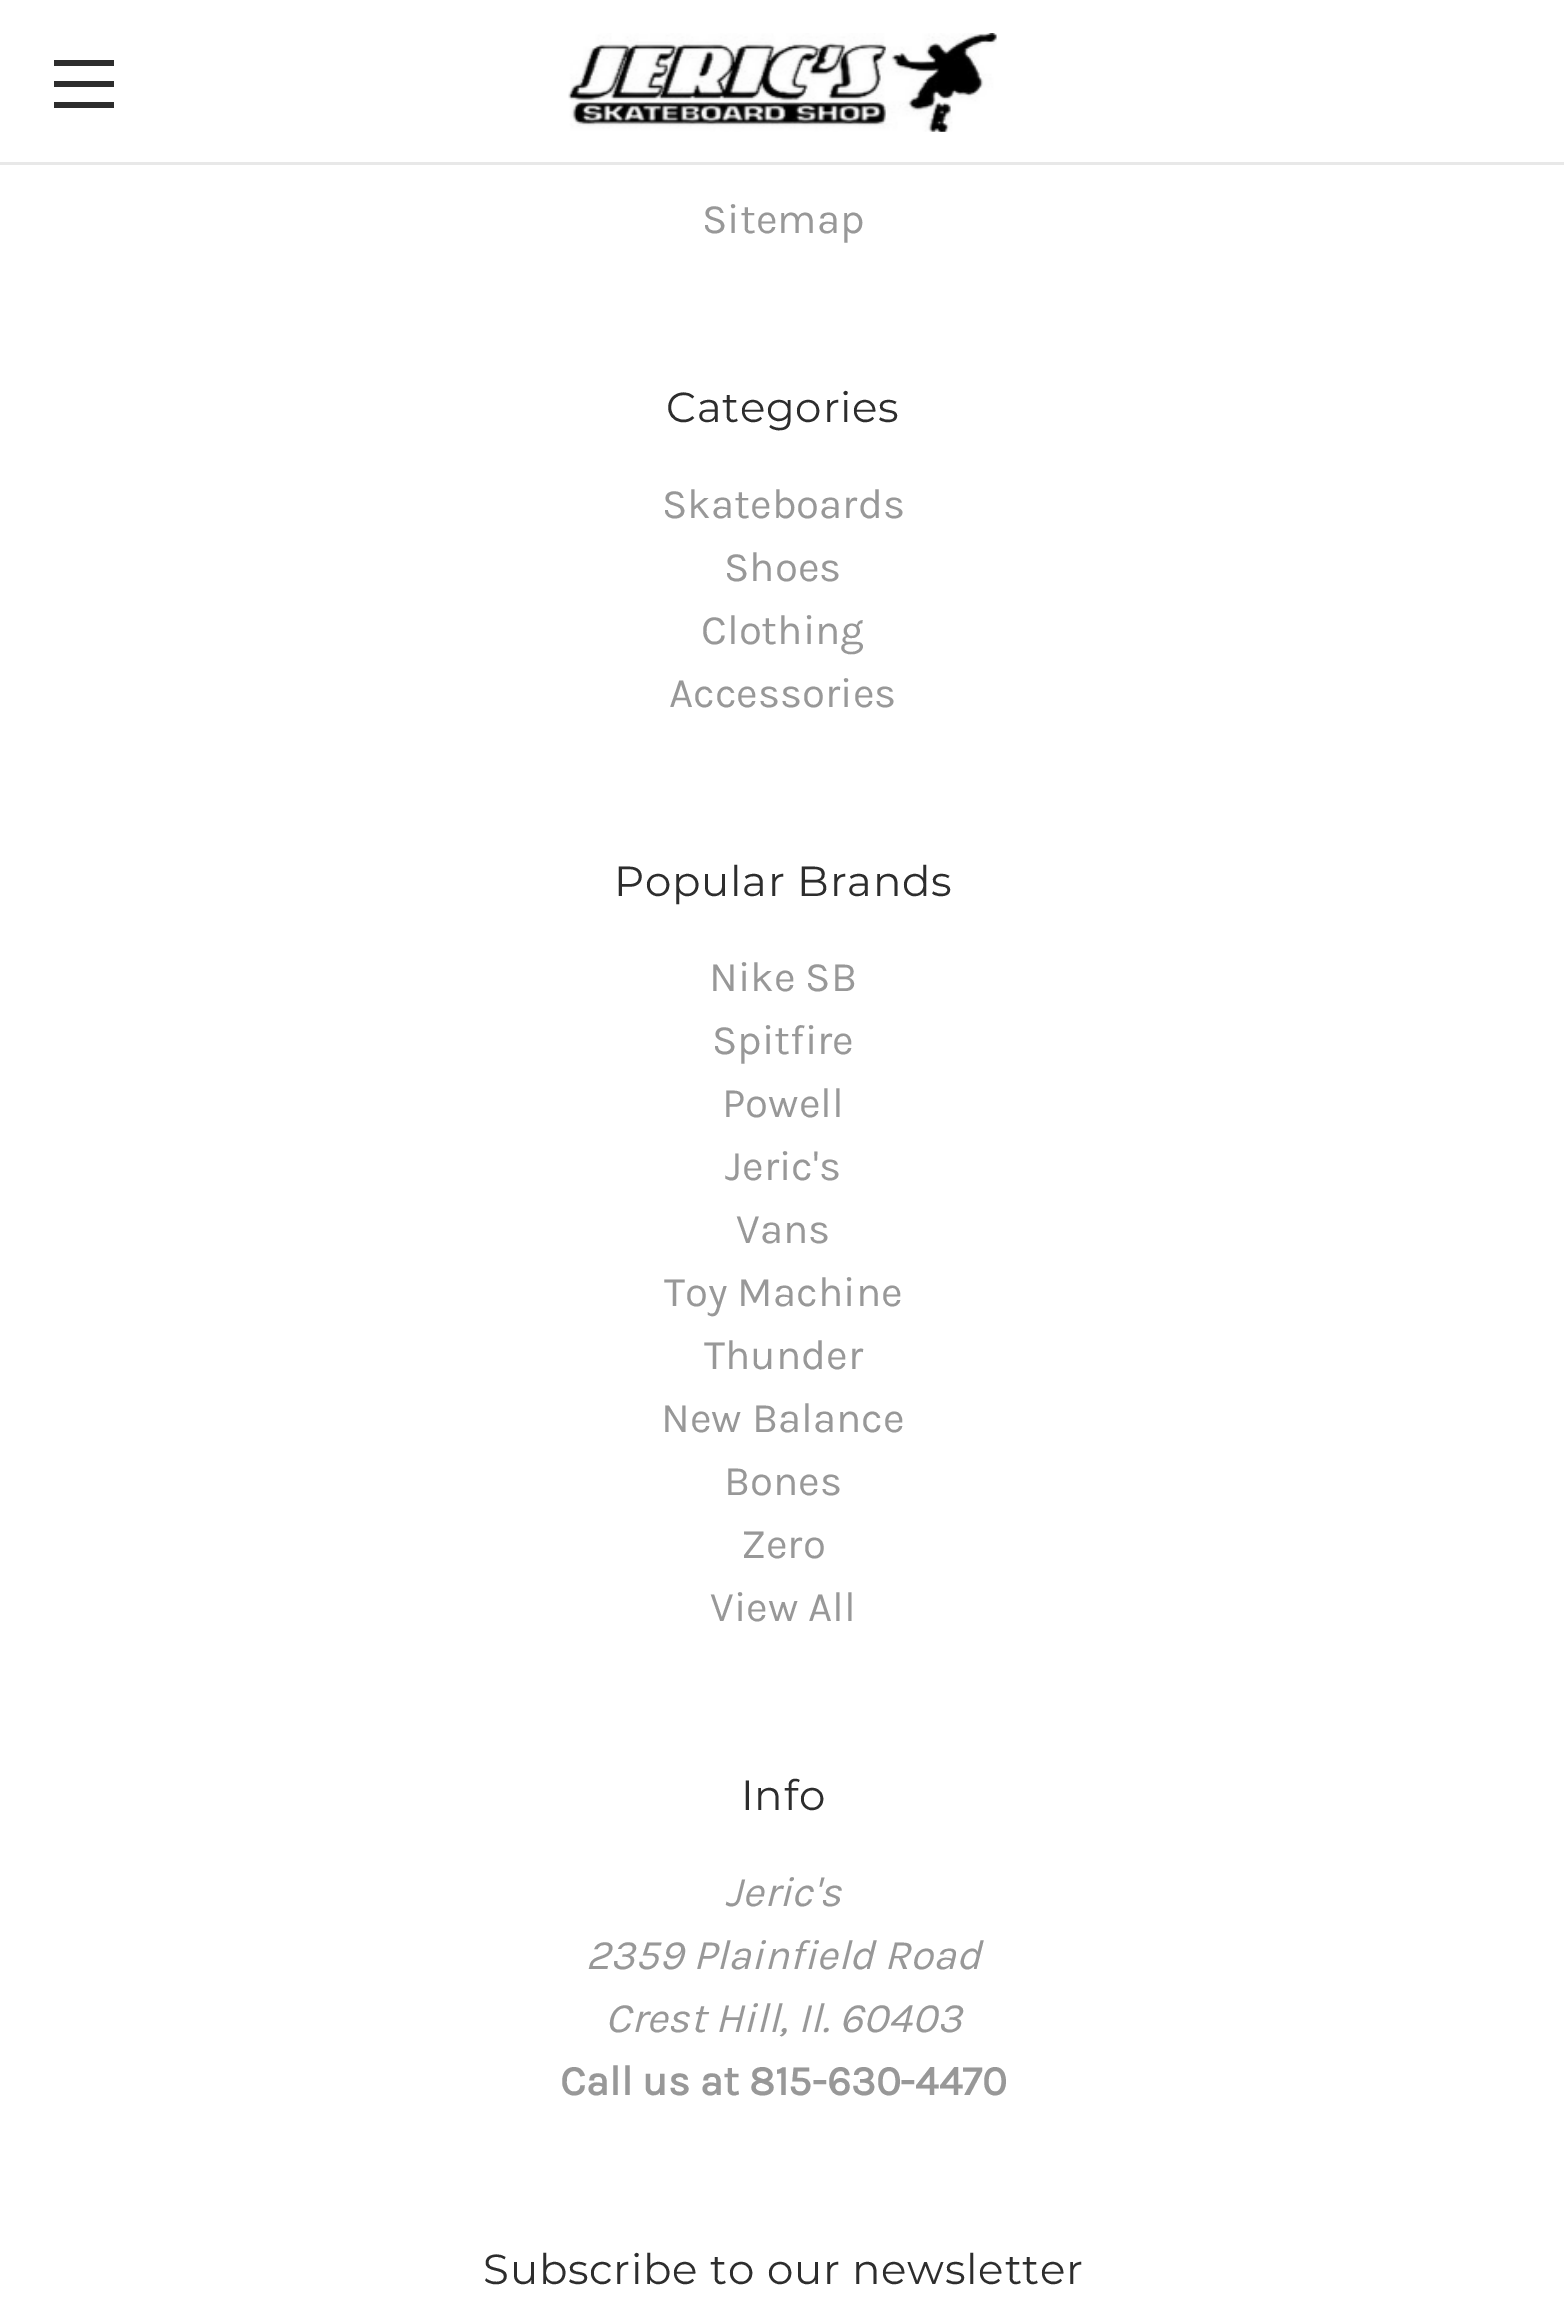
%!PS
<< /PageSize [1564 2324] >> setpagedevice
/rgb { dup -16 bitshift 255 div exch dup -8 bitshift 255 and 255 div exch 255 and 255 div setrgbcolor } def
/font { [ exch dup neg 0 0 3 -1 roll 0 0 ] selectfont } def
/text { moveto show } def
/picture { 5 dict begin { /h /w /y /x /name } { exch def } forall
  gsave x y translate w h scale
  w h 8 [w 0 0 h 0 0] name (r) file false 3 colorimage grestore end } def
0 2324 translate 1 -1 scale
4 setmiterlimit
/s1 { /Karla-Regular 42 font 16#989898 rgb } def
/s2 { /Karla-Italic 42 font 16#989898 rgb } def
/s3 { /Karla-Bold 42 font 16#989898 rgb } def
16#FFFFFF rgb
0 0 1564 2324 rectfill
16#E8E8E8 rgb
0 162 1564 3 rectfill
16#2D2D2D rgb
54 81 60 6 rectfill
54 60 60 6 rectfill
54 102 60 6 rectfill
(pic1.raw) 568 33 429 99 picture
s1
(Sitemap) 702 233 text
/Montserrat-Thin 42 font
16#2D2D2D rgb
666 422 moveto 0.75 0 (Categories) ashow
s1
(Skateboards) 662 518 text
(Shoes) 724 581 text
(Clothing) 701 644 text
(Accessories) 669 707 text
/Montserrat-Thin 42 font
16#2D2D2D rgb
614 896 moveto 0.75 0 (Popular Brands) ashow
s1
(Nike SB) 709 991 text
(Spitfire) 712 1054 text
(Powell) 722 1117 text
(Jeric's) 725 1180 text
(Vans) 736 1243 text
(Toy Machine) 664 1306 text
(Thunder) 704 1369 text
(New Balance) 661 1432 text
(Bones) 724 1495 text
(Zero) 741 1558 text
(View All) 710 1621 text
/Montserrat-Thin 42 font
16#2D2D2D rgb
741 1810 moveto 0.75 0 (Info) ashow
s2
(Jeric's) 725 1906 text
(2359 Plainfield Road) 586 1969 text
(Crest Hill, Il. 60403) 605 2032 text
s3
(Call us at 815-630-4470) 560 2095 text
/Montserrat-Thin 42 font
16#2D2D2D rgb
483 2284 moveto 0.75 0 (Subscribe to our newsletter) ashow
showpage
